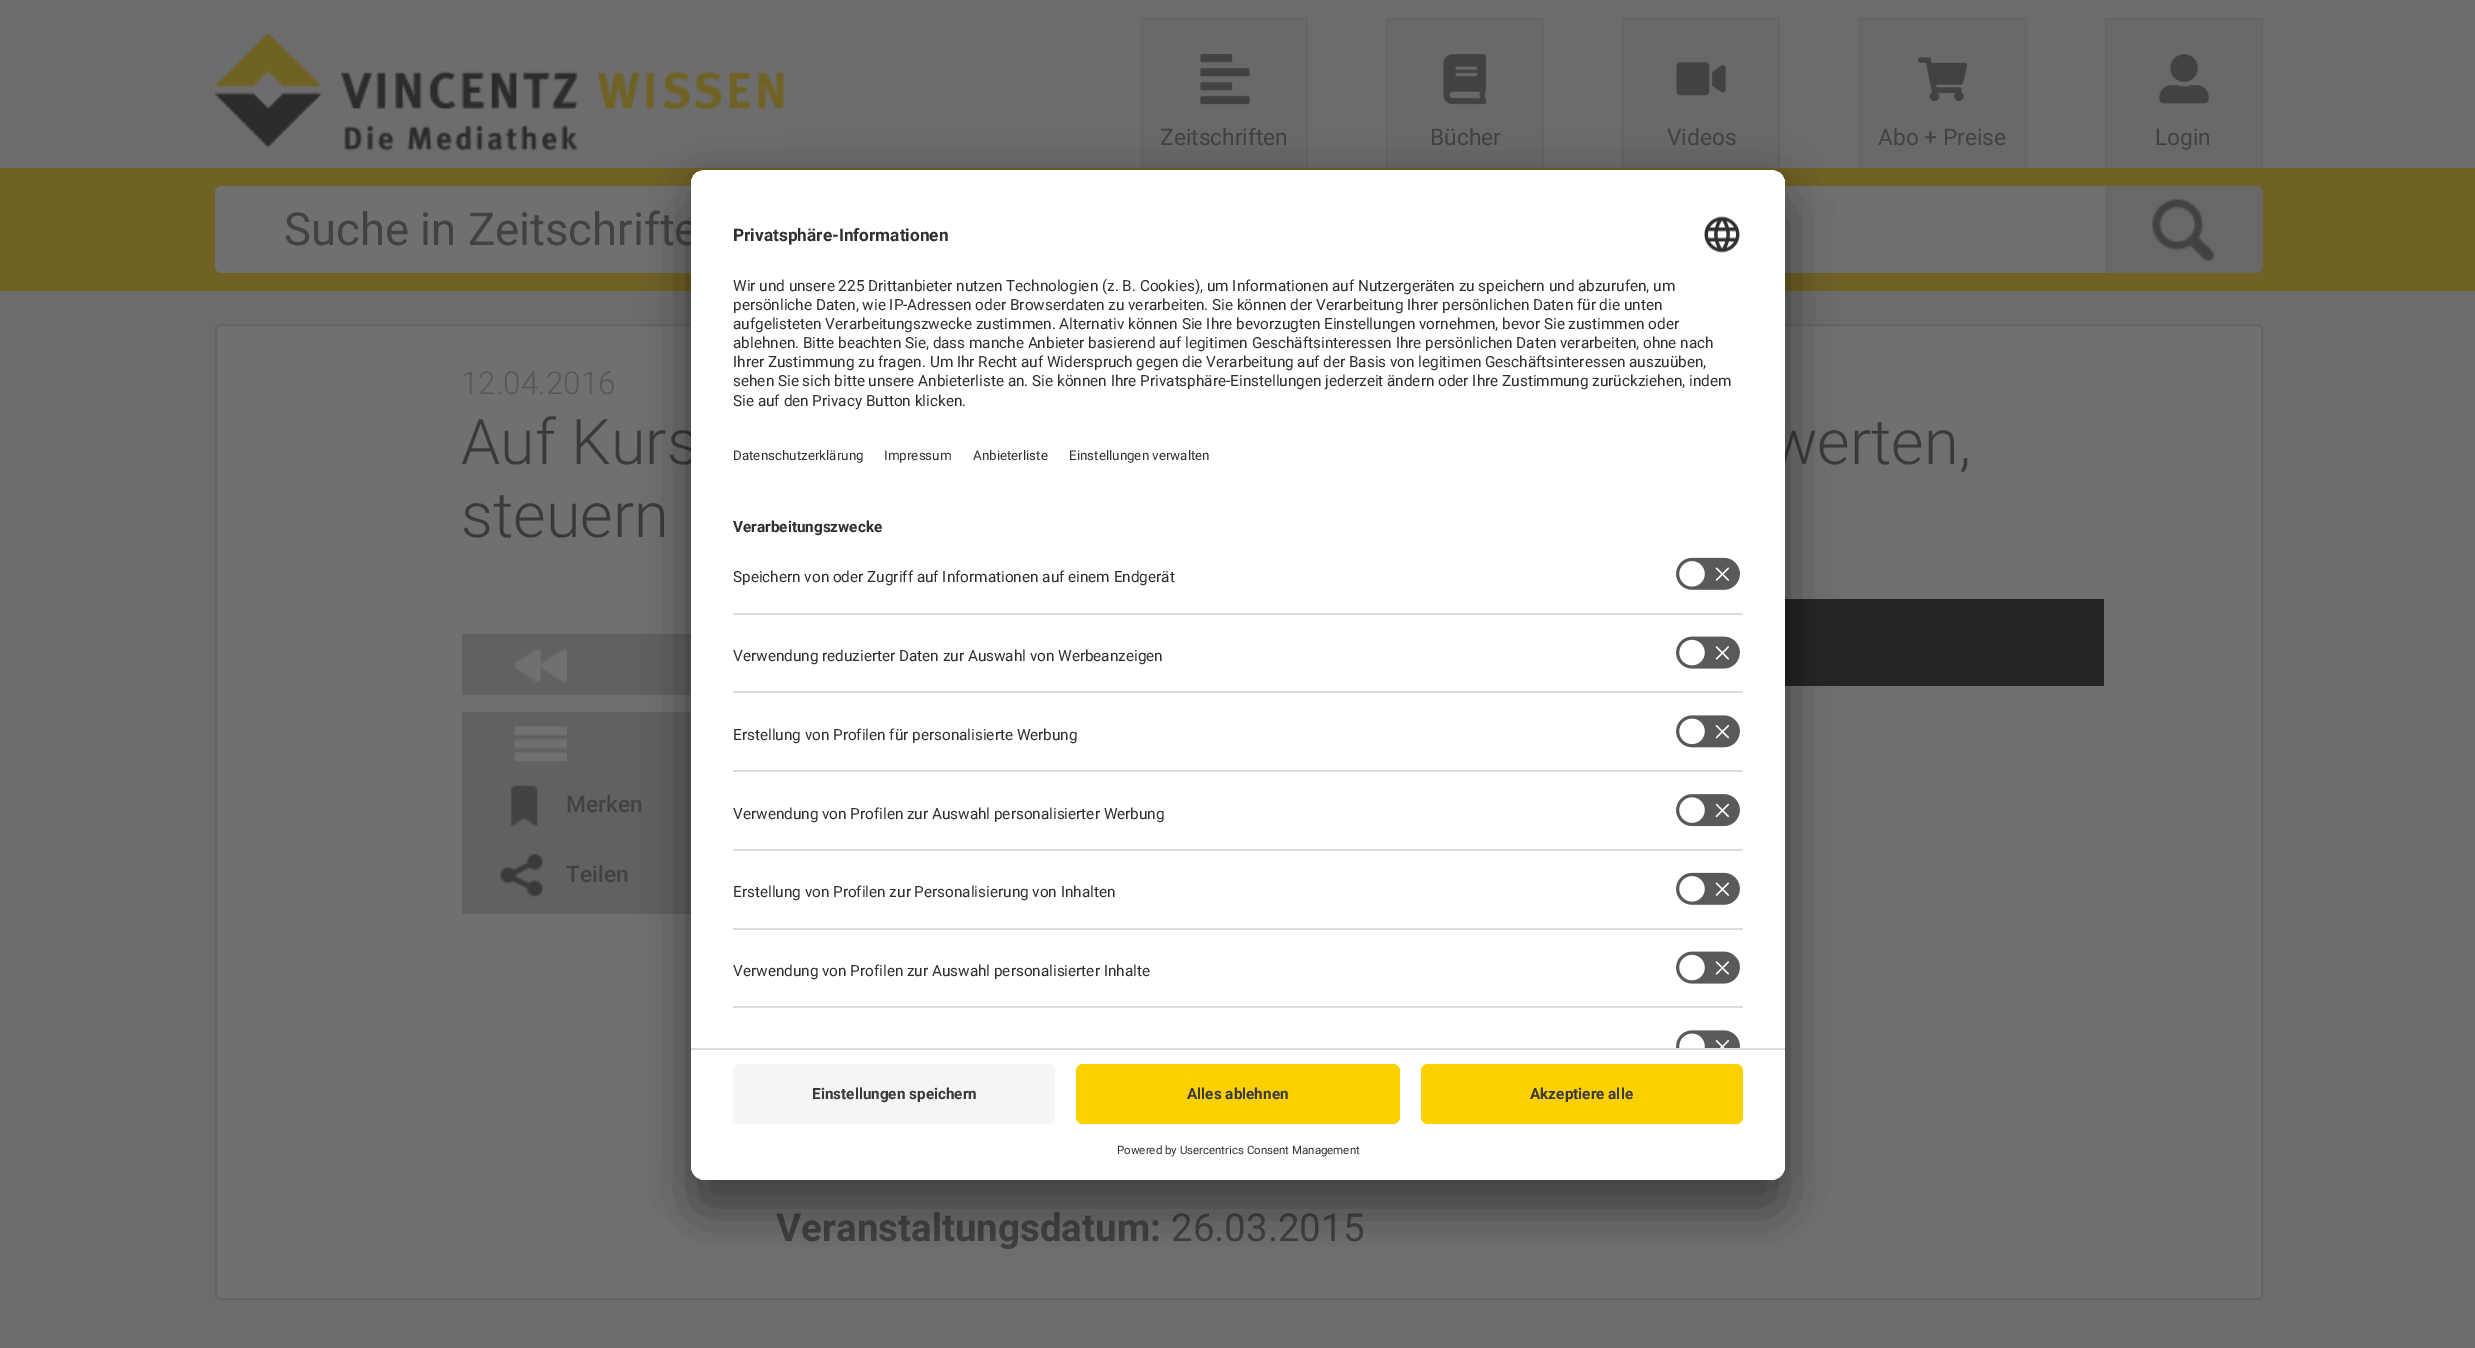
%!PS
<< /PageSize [2475 1348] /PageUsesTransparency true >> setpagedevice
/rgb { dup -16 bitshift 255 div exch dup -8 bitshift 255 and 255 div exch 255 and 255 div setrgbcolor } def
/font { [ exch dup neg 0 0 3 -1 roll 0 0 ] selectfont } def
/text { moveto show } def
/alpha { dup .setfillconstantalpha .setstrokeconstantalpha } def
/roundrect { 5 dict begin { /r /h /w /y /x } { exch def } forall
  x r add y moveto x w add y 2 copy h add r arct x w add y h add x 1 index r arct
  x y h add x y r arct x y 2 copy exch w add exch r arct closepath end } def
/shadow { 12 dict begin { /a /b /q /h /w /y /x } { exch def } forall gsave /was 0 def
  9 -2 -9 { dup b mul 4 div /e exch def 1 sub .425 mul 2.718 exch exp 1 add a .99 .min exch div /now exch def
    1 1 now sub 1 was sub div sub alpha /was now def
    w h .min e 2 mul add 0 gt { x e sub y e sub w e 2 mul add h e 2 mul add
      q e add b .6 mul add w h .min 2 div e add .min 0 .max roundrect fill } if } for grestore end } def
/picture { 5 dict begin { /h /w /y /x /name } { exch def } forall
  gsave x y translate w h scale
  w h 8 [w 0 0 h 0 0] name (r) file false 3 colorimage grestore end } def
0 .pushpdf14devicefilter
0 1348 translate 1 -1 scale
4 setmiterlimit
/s1 { /Roboto-Regular 22.75 font 16#424242 rgb } def
/s2 { /Roboto-Regular 45.5 font 16#424242 rgb } def
/s3 { /Roboto-Light 31.5 font 16#575757 rgb } def
/s4 { /Roboto-Light 63 font 16#3A3A3A rgb } def
/s5 { /Roboto-Medium 22.75 font 16#424242 rgb } def
/s6 { /Roboto-Bold 38.5 font 16#424242 rgb } def
/s7 { /Roboto-Regular 38.5 font 16#424242 rgb } def
/s8 { /Roboto-Bold 17.25 font 16#303030 rgb } def
/s9 { /Roboto-Regular 15.3 font 16#303030 rgb } def
/s10 { /Roboto-Regular 13.4 font 16#303030 rgb } def
/s11 { /Roboto-Bold 15.3 font 16#303030 rgb } def
/s12 { /Roboto-Bold 15.3 font 16#3A3A3A rgb } def
/s13 { /Roboto-Regular 11.5 font 16#303030 rgb } def
16#6C6C6C rgb
0 0 2475 1348 rectfill
(pic1.raw) 215 31 569 120 picture
16#686969 rgb
1143 20 163 148 rectfill
16#656565 rgb
1141 18 166 2 rectfill
1306 18 2 150 rectfill
1141 18 2 150 rectfill
(pic2.raw) 1200 54 50 51 picture
s1
(Zeitschriften) 1160 145 text
16#686969 rgb
1388 20 154 148 rectfill
16#656565 rgb
1386 18 158 2 rectfill
1542 18 2 150 rectfill
1386 18 2 150 rectfill
(pic3.raw) 1443 54 44 51 picture
s1
(Bücher) 1430 145 text
16#686969 rgb
1624 20 154 148 rectfill
16#656565 rgb
1622 18 158 2 rectfill
1778 18 2 150 rectfill
1622 18 2 150 rectfill
(pic4.raw) 1676 62 50 34 picture
s1
(Videos) 1667 145 text
16#686969 rgb
1861 20 164 148 rectfill
16#656565 rgb
1859 18 168 2 rectfill
2025 18 2 150 rectfill
1859 18 2 150 rectfill
(pic5.raw) 1918 57 50 44 picture
s1
(Abo + Preise) 1878 145 text
16#686969 rgb
2107 20 154 148 rectfill
16#656565 rgb
2105 18 158 2 rectfill
2261 18 2 150 rectfill
2105 18 2 150 rectfill
(pic6.raw) 2159 54 50 50 picture
s1
(Login) 2155 145 text
16#706124 rgb
0 168 2475 123 rectfill
16#707070 rgb
222 186 moveto 2105 186 lineto 2105 273 lineto 222 273 lineto 218 273 215 270 215 266 curveto 215 193 lineto 215 189 218 186 222 186 curveto closepath fill
s2
(Suche in Zeitschrifte) 284 245 text
16#686868 rgb
2105 186 moveto 2256 186 lineto 2260 186 2263 189 2263 193 curveto 2263 266 lineto 2263 270 2260 273 2256 273 curveto 2105 273 lineto closepath fill
(pic7.raw) 2152 199 62 62 picture
16#707070 rgb
216 325 2046 974 4 roundrect gsave fill grestore
16#636363 rgb
2 setlinewidth
stroke
s3
(12.04.2016) 461 394 text
s4
(Auf Kurs) 461 464 text
(werten,) 1770 464 text
(steuern) 461 537 text
16#616161 rgb
462 634 229 61 rectfill
(pic8.raw) 514 649 53 34 picture
462 712 229 202 rectfill
(pic9.raw) 514 726 53 36 picture
(pic10.raw) 510 785 28 41 picture
s5
(Merken) 566 812 text
(pic11.raw) 500 854 43 43 picture
(Teilen) 566 882 text
16#242424 rgb
1785 599 319 87 rectfill
s6
(Veranstaltungsdatum:) 776 1241 text
s7
(26.03.2015) 1171 1241 text
16#000000 rgb
691 205 1094 1010 14 24.5 0.3 shadow
691 179 1094 1009 14 23 0.22 shadow
16#FFFFFF rgb
691 170 1094 1010 14 roundrect fill
gsave
691 170 1094 1010 14 roundrect clip newpath
705 170 moveto 1771 170 lineto 1778.5 170 1785 176.5 1785 184 curveto 1785 1048 lineto 691 1048 lineto 691 184 lineto 691 176.5 697.5 170 705 170 curveto closepath clip newpath
691 172 1094 876 rectfill
691 172 1094 325 rectfill
grestore
s8
(Privatsphäre-Informationen) 733 241 text
(pic12.raw) 1704 216 36 37 picture
s9
(Wir und unsere 225 Drittanbieter nutzen Technologien \(z. B. Cookies\), um Informationen auf Nutzergeräten zu speichern und abzurufen, um) 733 291 text
(persönliche Daten, wie IP-Adressen oder Browserdaten zu verarbeiten. Sie können der Verarbeitung Ihrer persönlichen Daten für die unten) 733 310 text
(aufgelisteten Verarbeitungszwecke zustimmen. Alternativ können Sie Ihre bevorzugten Einstellungen vornehmen, bevor Sie zustimmen oder) 733 329 text
(ablehnen. Bitte beachten Sie, dass manche Anbieter basierend auf legitimen Geschäftsinteressen Ihre persönlichen Daten verarbeiten, ohne nach) 733 348 text
(Ihrer Zustimmung zu fragen. Um Ihr Recht auf Widerspruch gegen die Verarbeitung auf der Basis von legitimen Geschäftsinteressen auszuüben,) 733 367 text
(sehen Sie sich bitte unsere Anbieterliste an. Sie können Ihre Privatsphäre-Einstellungen jederzeit ändern oder Ihre Zustimmung zurückziehen, indem) 733 386 text
(Sie auf den Privacy Button klicken.) 733 406 text
s10
(Datenschutzerklärung) 733 460 text
(Impressum) 884 460 text
(Anbieterliste) 973 460 text
(Einstellungen verwalten) 1069 460 text
s11
(Verarbeitungszwecke) 733 532 text
16#DDDDDD rgb
733 613 1010 2 rectfill
s9
(Speichern von oder Zugriff auf Informationen auf einem Endgerät) 733 582 text
(pic13.raw) 1676 557 64 33 picture
16#DDDDDD rgb
733 691 1010 2 rectfill
s9
(Verwendung reduzierter Daten zur Auswahl von Werbeanzeigen) 733 661 text
(pic14.raw) 1676 636 64 33 picture
16#DDDDDD rgb
733 770 1010 2 rectfill
s9
(Erstellung von Profilen für personalisierte Werbung) 733 740 text
(pic15.raw) 1676 715 64 33 picture
16#DDDDDD rgb
733 849 1010 2 rectfill
s9
(Verwendung von Profilen zur Auswahl personalisierter Werbung) 733 819 text
(pic16.raw) 1676 794 64 33 picture
16#DDDDDD rgb
733 928 1010 2 rectfill
s9
(Erstellung von Profilen zur Personalisierung von Inhalten) 733 897 text
(pic13.raw) 1676 872 64 33 picture
16#DDDDDD rgb
733 1006 1010 2 rectfill
s9
(Verwendung von Profilen zur Auswahl personalisierter Inhalte) 733 976 text
(pic14.raw) 1676 951 64 33 picture
(pic17.raw) 1676 1030 64 18 picture
16#FFFFFF rgb
691 1048 moveto 1785 1048 lineto 1785 1166 lineto 1785 1173.5 1778.5 1180 1771 1180 curveto 705 1180 lineto 697.5 1180 691 1173.5 691 1166 curveto closepath fill
16#DDDDDD rgb
691 1048 1094 2 rectfill
16#F5F5F5 rgb
733 1064 322 60 7 roundrect fill
s12
(Einstellungen speichern) 812 1099 text
16#FDD100 rgb
1076 1064 324 60 7 roundrect fill
s12
(Alles ablehnen) 1187 1099 text
16#FDD100 rgb
1421 1064 322 60 7 roundrect fill
s12
(Akzeptiere alle) 1530 1099 text
s13
(Powered by Usercentrics Consent Management) 1117 1154 text
.poppdf14devicefilter showpage
